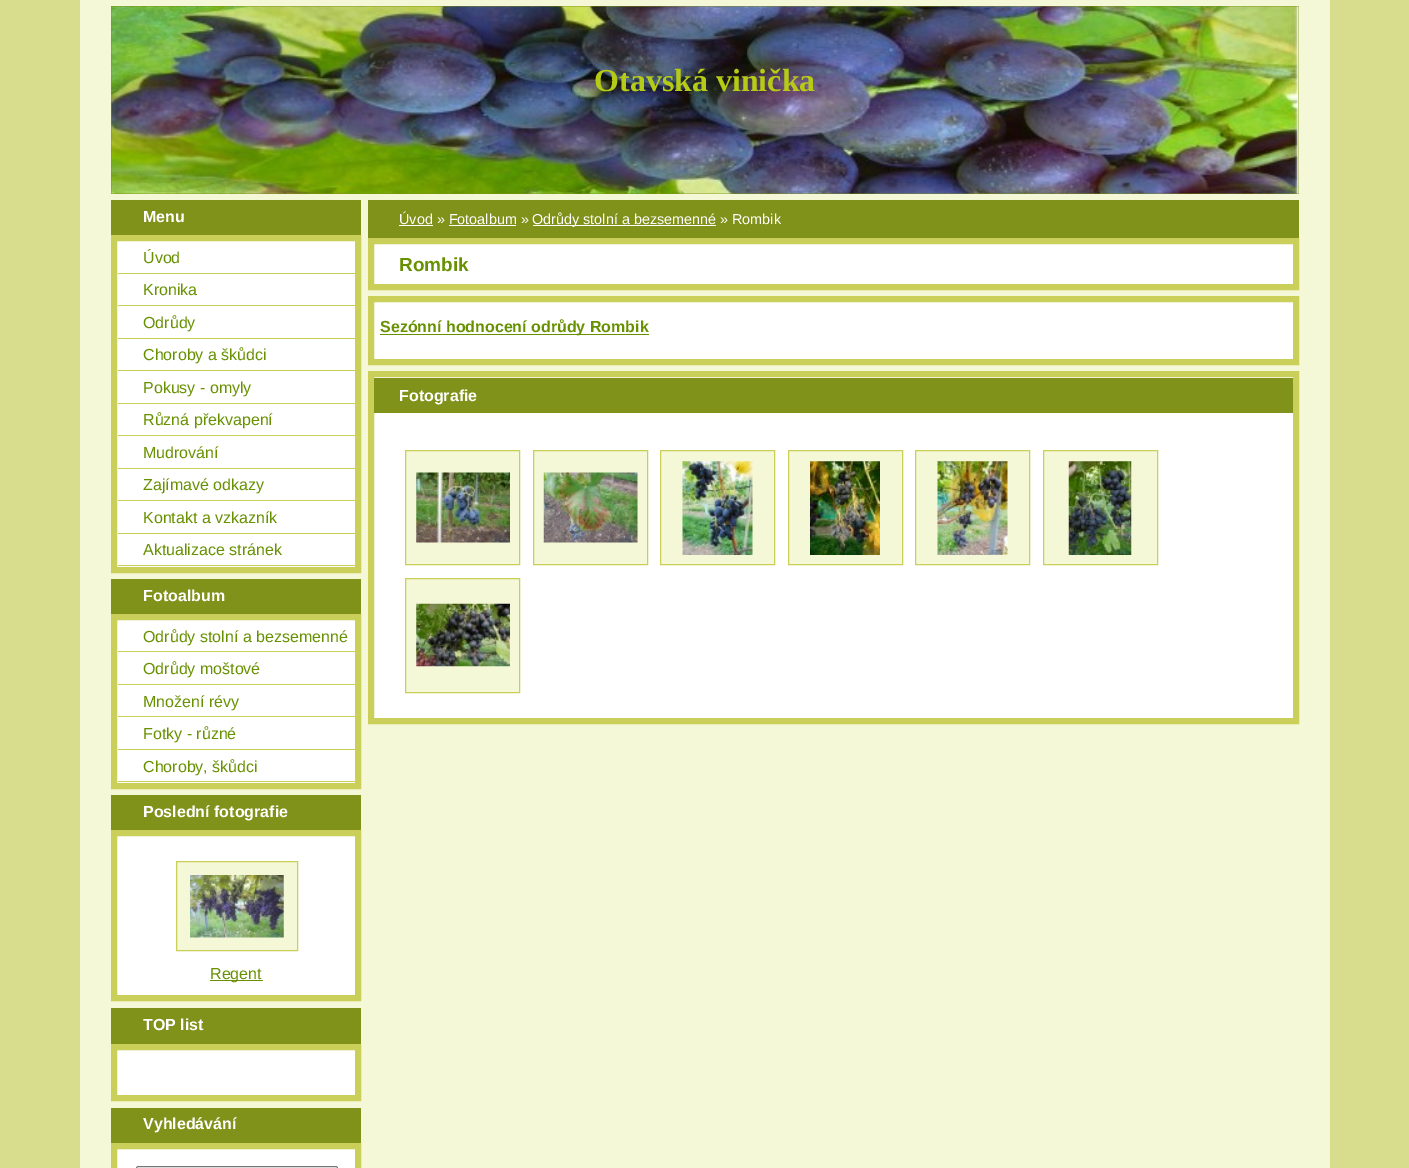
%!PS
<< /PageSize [1409 1168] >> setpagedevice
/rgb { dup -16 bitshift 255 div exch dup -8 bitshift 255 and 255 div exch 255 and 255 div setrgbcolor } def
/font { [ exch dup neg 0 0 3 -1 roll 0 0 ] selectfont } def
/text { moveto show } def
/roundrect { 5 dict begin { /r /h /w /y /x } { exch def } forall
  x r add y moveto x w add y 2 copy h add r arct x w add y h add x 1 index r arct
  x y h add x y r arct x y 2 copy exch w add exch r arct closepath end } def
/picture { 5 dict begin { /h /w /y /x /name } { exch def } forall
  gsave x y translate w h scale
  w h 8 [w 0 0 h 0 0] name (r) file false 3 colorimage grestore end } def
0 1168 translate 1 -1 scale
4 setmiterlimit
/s1 { /LiberationSerif-Bold 32 font 16#B5CB16 rgb } def
/s2 { /LiberationSans-Bold 16 font 16#FFFFFF rgb } def
/s3 { /LiberationSans-Regular 16 font 16#689101 rgb } def
/s4 { /LiberationSans-Regular 14.4 font 16#FFFFFF rgb } def
/s5 { /LiberationSans-Bold 19 font 16#689101 rgb } def
/s6 { /LiberationSans-Bold 16 font 16#689101 rgb } def
16#D8DD8D rgb
0 0 1409 1168 rectfill
16#F5F8D7 rgb
80 0 1250 1168 rectfill
16#809219 rgb
111 6 1188 188 rectfill
(pic1.raw) 111 6 1188 188 picture
s1
(Otavská vinička) 594 91 text
16#809219 rgb
111 200 250 35 rectfill
s2
(Menu) 143 222 text
114 238 moveto 358 238 lineto 358 570 lineto 114 570 lineto closepath gsave fill grestore
16#CACF59 rgb
6 setlinewidth
stroke
118 273 237 1 rectfill
s3
(Úvod) 143 263 text
16#CACF59 rgb
118 305 237 1 rectfill
s3
(Kronika) 143 295 text
16#CACF59 rgb
118 338 237 1 rectfill
s3
(Odrůdy) 143 328 text
16#CACF59 rgb
118 370 237 1 rectfill
s3
(Choroby a škůdci) 143 360 text
16#CACF59 rgb
118 403 237 1 rectfill
s3
(Pokusy - omyly) 143 393 text
16#CACF59 rgb
118 435 237 1 rectfill
s3
(Různá překvapení) 143 425 text
16#CACF59 rgb
118 468 237 1 rectfill
s3
(Mudrování) 143 458 text
16#CACF59 rgb
118 500 237 1 rectfill
s3
(Zajímavé odkazy) 143 490 text
16#CACF59 rgb
118 533 237 1 rectfill
s3
(Kontakt a vzkazník) 143 523 text
16#CACF59 rgb
118 565 237 1 rectfill
s3
(Aktualizace stránek) 143 555 text
16#809219 rgb
111 579 250 35 rectfill
s2
(Fotoalbum) 143 601 text
114 617 moveto 358 617 lineto 358 786 lineto 114 786 lineto closepath gsave fill grestore
16#CACF59 rgb
stroke
118 651 237 1 rectfill
s3
(Odrůdy stolní a bezsemenné) 143 642 text
16#CACF59 rgb
118 684 237 1 rectfill
s3
(Odrůdy moštové) 143 674 text
16#CACF59 rgb
118 716 237 1 rectfill
s3
(Množení révy) 143 707 text
16#CACF59 rgb
118 749 237 1 rectfill
s3
(Fotky - různé) 143 739 text
16#CACF59 rgb
118 781 237 1 rectfill
s3
(Choroby, škůdci) 143 772 text
16#809219 rgb
111 795 250 35 rectfill
s2
(Poslední fotografie) 143 817 text
114 833 moveto 358 833 lineto 358 998 lineto 114 998 lineto closepath gsave fill grestore
16#CACF59 rgb
stroke
16#F5F8D7 rgb
176.5 861.5 moveto 297.5 861.5 lineto 297.5 950.5 lineto 176.5 950.5 lineto closepath gsave fill grestore
16#CACF59 rgb
1 setlinewidth
stroke
(pic2.raw) 190 875 94 63 picture
16#689101 rgb
210 980 53 1 rectfill
s3
(Regent) 210 979 text
16#809219 rgb
111 1008 250 36 rectfill
s2
(TOP list) 143 1030 text
114 1047 moveto 358 1047 lineto 358 1098 lineto 114 1098 lineto closepath gsave fill grestore
16#CACF59 rgb
6 setlinewidth
stroke
16#809219 rgb
111 1108 250 35 rectfill
s2
(Vyhledávání) 143 1129 text
114 1146 moveto 358 1146 lineto 358 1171 lineto 114 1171 lineto closepath gsave fill grestore
16#CACF59 rgb
stroke
16#767676 rgb
1 setlinewidth
136.5 1166.5 201 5 2 roundrect stroke
16#809219 rgb
368 200 931 38 rectfill
s4
(Úvod » Fotoalbum ») 399 224 text
399 225 34 1 rectfill
533 225 183 1 rectfill
(Odrůdy stolní a bezsemenné » Rombik) 532 224 text
449 225 67 1 rectfill
371 241 moveto 1296 241 lineto 1296 287 lineto 371 287 lineto closepath gsave fill grestore
16#CACF59 rgb
6 setlinewidth
stroke
s5
(Rombik) 399 271 text
16#FFFFFF rgb
371 299 moveto 1296 299 lineto 1296 362 lineto 371 362 lineto closepath gsave fill grestore
16#CACF59 rgb
stroke
16#689101 rgb
380 334 269 1 rectfill
s6
(Sezónní hodnocení odrůdy Rombik) 380 332 text
16#FFFFFF rgb
371 374 moveto 1296 374 lineto 1296 721 lineto 371 721 lineto closepath gsave fill grestore
16#CACF59 rgb
stroke
16#809219 rgb
374 378 919 35 rectfill
s2
(Fotografie) 399 401 text
16#F5F8D7 rgb
405.5 450.5 moveto 519.5 450.5 lineto 519.5 564.5 lineto 405.5 564.5 lineto closepath gsave fill grestore
16#CACF59 rgb
1 setlinewidth
stroke
(pic3.raw) 416 472 94 71 picture
16#F5F8D7 rgb
533.5 450.5 moveto 647.5 450.5 lineto 647.5 564.5 lineto 533.5 564.5 lineto closepath gsave fill grestore
16#CACF59 rgb
stroke
(pic4.raw) 543 472 95 71 picture
16#F5F8D7 rgb
660.5 450.5 moveto 774.5 450.5 lineto 774.5 564.5 lineto 660.5 564.5 lineto closepath gsave fill grestore
16#CACF59 rgb
stroke
(pic5.raw) 682 461 71 94 picture
16#F5F8D7 rgb
788.5 450.5 moveto 902.5 450.5 lineto 902.5 564.5 lineto 788.5 564.5 lineto closepath gsave fill grestore
16#CACF59 rgb
stroke
(pic6.raw) 810 461 70 94 picture
16#F5F8D7 rgb
915.5 450.5 moveto 1029.5 450.5 lineto 1029.5 564.5 lineto 915.5 564.5 lineto closepath gsave fill grestore
16#CACF59 rgb
stroke
(pic7.raw) 937 461 71 94 picture
16#F5F8D7 rgb
1043.5 450.5 moveto 1157.5 450.5 lineto 1157.5 564.5 lineto 1043.5 564.5 lineto closepath gsave fill grestore
16#CACF59 rgb
stroke
(pic8.raw) 1068 461 64 94 picture
16#F5F8D7 rgb
405.5 578.5 moveto 519.5 578.5 lineto 519.5 692.5 lineto 405.5 692.5 lineto closepath gsave fill grestore
16#CACF59 rgb
stroke
(pic9.raw) 416 603 94 64 picture
showpage
